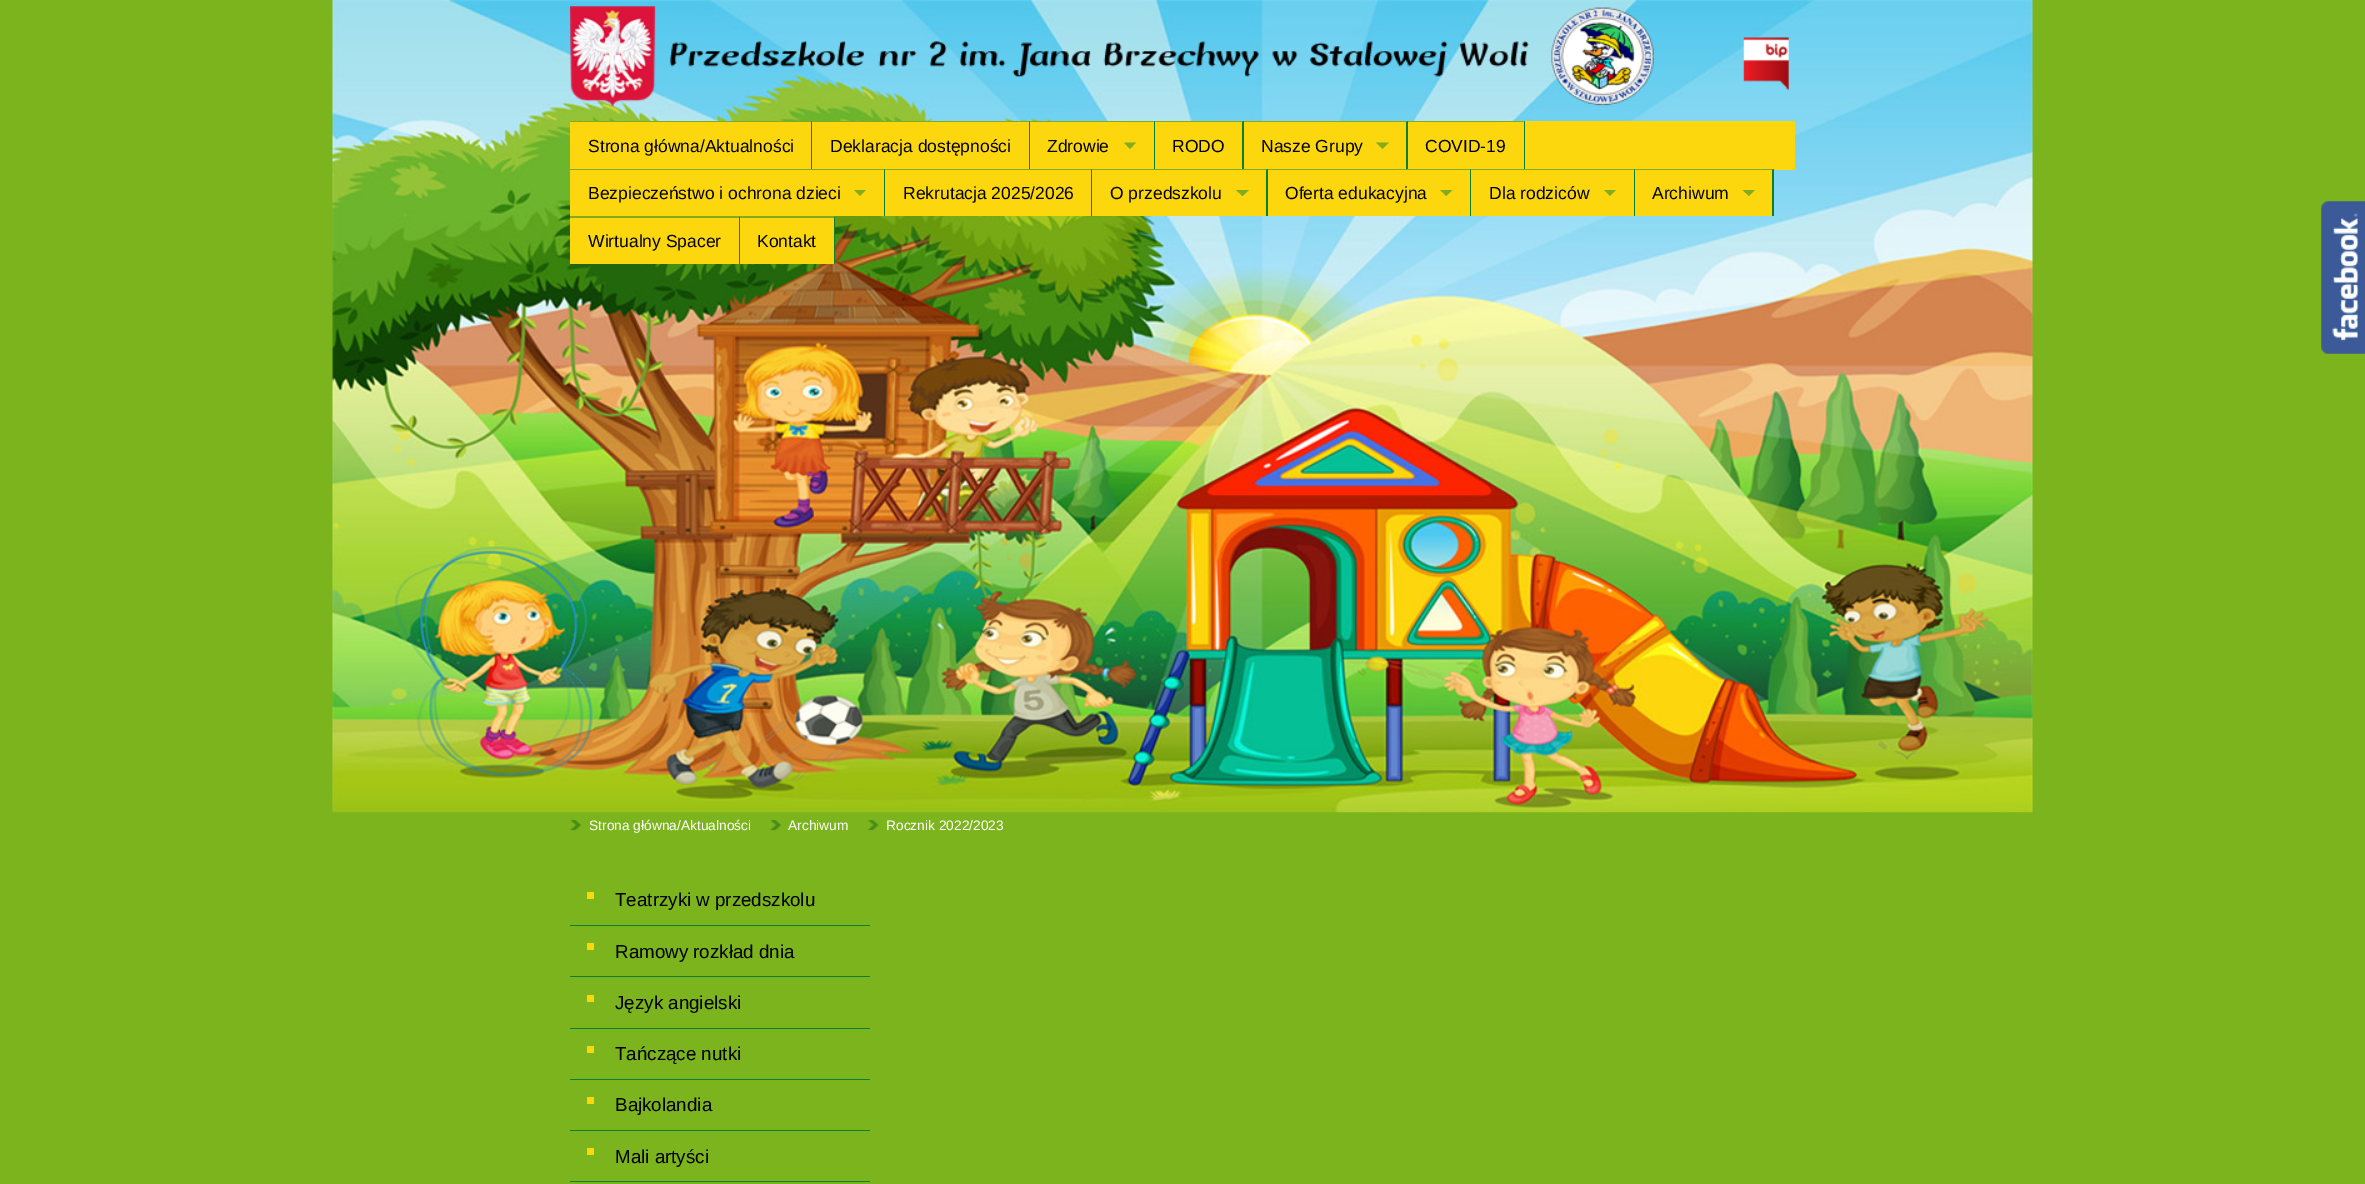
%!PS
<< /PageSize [2365 1184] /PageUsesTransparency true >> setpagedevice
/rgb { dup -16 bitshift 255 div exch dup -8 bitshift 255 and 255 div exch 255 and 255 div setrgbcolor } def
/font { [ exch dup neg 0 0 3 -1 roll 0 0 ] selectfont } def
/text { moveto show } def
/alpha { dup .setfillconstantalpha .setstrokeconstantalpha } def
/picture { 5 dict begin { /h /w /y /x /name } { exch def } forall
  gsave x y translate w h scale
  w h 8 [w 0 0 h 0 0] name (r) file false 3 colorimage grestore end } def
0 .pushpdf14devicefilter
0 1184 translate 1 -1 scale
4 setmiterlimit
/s1 { /LiberationSans-Regular 17.5 font 16#000000 rgb } def
/s2 { /LiberationSans-Regular 13.75 font 16#FFFFFF rgb } def
/s3 { /LiberationSans-Regular 18.75 font 16#000000 rgb } def
16#7CB41E rgb
0 0 2365 1184 rectfill
(pic1.raw) 332 0 1701 813 picture
(pic2.raw) 570 6 1084 101 picture
(pic3.raw) 1743 37 46 54 picture
16#FDD70E rgb
570 121 1225 49 rectfill
16#84AB20 rgb
570 121 moveto 812 121 lineto 811 122 lineto 570 122 lineto closepath fill
16#0B7F32 rgb
812 121 moveto 812 169 lineto 811 169 lineto 811 122 lineto closepath fill
s1
(Strona główna/Aktualności) 588 152 text
16#84AB20 rgb
812 121 moveto 1030 121 lineto 1029 122 lineto 812 122 lineto closepath fill
16#0B7F32 rgb
1030 121 moveto 1030 169 lineto 1029 169 lineto 1029 122 lineto closepath fill
s1
(Deklaracja dostępności) 830 152 text
16#84AB20 rgb
1030 121 moveto 1155 121 lineto 1154 122 lineto 1030 122 lineto closepath fill
16#0B7F32 rgb
1155 121 moveto 1155 169 lineto 1154 169 lineto 1154 122 lineto closepath fill
s1
(Zdrowie) 1047 152 text
16#84AB20 rgb
1124 142.5 moveto 1136 142.5 lineto 1130 149 lineto closepath fill
1155 121 moveto 1244 121 lineto 1242 122 lineto 1155 122 lineto closepath fill
16#0B7F32 rgb
1244 121 moveto 1244 169 lineto 1242 169 lineto 1242 122 lineto closepath fill
s1
(RODO) 1172 152 text
16#84AB20 rgb
1244 121 moveto 1408 121 lineto 1406 122 lineto 1244 122 lineto closepath fill
16#0B7F32 rgb
1408 121 moveto 1408 169 lineto 1406 169 lineto 1406 122 lineto closepath fill
s1
(Nasze Grupy) 1261 152 text
16#84AB20 rgb
1376 142.5 moveto 1389 142.5 lineto 1382.5 149 lineto closepath fill
1408 121 moveto 1525 121 lineto 1524 122 lineto 1408 122 lineto closepath fill
16#0B7F32 rgb
1525 121 moveto 1525 169 lineto 1524 169 lineto 1524 122 lineto closepath fill
s1
(COVID-19) 1425 152 text
16#FDD70E rgb
570 170 1204 46 rectfill
16#84AB20 rgb
570 169 moveto 885 169 lineto 884 170 lineto 570 170 lineto closepath fill
16#0B7F32 rgb
885 169 moveto 885 216 lineto 884 216 lineto 884 170 lineto closepath fill
s1
(Bezpieczeństwo i ochrona dzieci) 588 199 text
16#84AB20 rgb
854 190 moveto 866 190 lineto 860 196 lineto closepath fill
885 169 moveto 1092 169 lineto 1091 170 lineto 885 170 lineto closepath fill
16#0B7F32 rgb
1092 169 moveto 1092 216 lineto 1091 216 lineto 1091 170 lineto closepath fill
s1
(Rekrutacja 2025/2026) 903 199 text
16#84AB20 rgb
1092 169 moveto 1268 169 lineto 1266 170 lineto 1092 170 lineto closepath fill
16#0B7F32 rgb
1268 169 moveto 1268 216 lineto 1266 216 lineto 1266 170 lineto closepath fill
s1
(O przedszkolu) 1110 199 text
16#84AB20 rgb
1236 190 moveto 1249 190 lineto 1242.5 196 lineto closepath fill
1268 169 moveto 1471 169 lineto 1470 170 lineto 1268 170 lineto closepath fill
16#0B7F32 rgb
1471 169 moveto 1471 216 lineto 1470 216 lineto 1470 170 lineto closepath fill
s1
(Oferta edukacyjna) 1285 199 text
16#84AB20 rgb
1440 190 moveto 1452.5 190 lineto 1446 196 lineto closepath fill
1471 169 moveto 1635 169 lineto 1634 170 lineto 1471 170 lineto closepath fill
16#0B7F32 rgb
1635 169 moveto 1635 216 lineto 1634 216 lineto 1634 170 lineto closepath fill
s1
(Dla rodziców) 1489 199 text
16#84AB20 rgb
1604 190 moveto 1616 190 lineto 1610 196 lineto closepath fill
1635 169 moveto 1774 169 lineto 1772 170 lineto 1635 170 lineto closepath fill
16#0B7F32 rgb
1774 169 moveto 1774 216 lineto 1772 216 lineto 1772 170 lineto closepath fill
s1
(Archiwum) 1652 199 text
16#84AB20 rgb
1742.5 190 moveto 1755 190 lineto 1749 196 lineto closepath fill
16#FDD70E rgb
570 216 265 48 rectfill
16#84AB20 rgb
570 216 moveto 740 216 lineto 739 218 lineto 570 218 lineto closepath fill
16#0B7F32 rgb
740 216 moveto 740 264 lineto 739 264 lineto 739 218 lineto closepath fill
s1
(Wirtualny Spacer) 588 247 text
16#84AB20 rgb
740 216 moveto 835 216 lineto 834 218 lineto 740 218 lineto closepath fill
16#0B7F32 rgb
835 216 moveto 835 264 lineto 834 264 lineto 834 218 lineto closepath fill
s1
(Kontakt) 757 247 text
0.5 alpha
16#7CB31E rgb
333 812 1700 1 rectfill
1 alpha
(pic4.raw) 570 820 12 11 picture
s2
(Strona główna/Aktualności) 589 830 text
(pic5.raw) 770 820 12 11 picture
(Archiwum) 788 830 text
(pic6.raw) 867 820 12 11 picture
(Rocznik 2022/2023) 886 830 text
(pic7.raw) 2321 201 44 153 picture
16#0B7F32 rgb
570 925 300 1 rectfill
16#FDD70E rgb
587 892 7 7 rectfill
s3
(Teatrzyki w przedszkolu) 615 906 text
16#0B7F32 rgb
570 976 300 1 rectfill
16#FDD70E rgb
587 943 7 7 rectfill
s3
(Ramowy rozkład dnia) 615 958 text
16#0B7F32 rgb
570 1028 300 1 rectfill
16#FDD70E rgb
587 995 7 7 rectfill
s3
(Język angielski) 615 1009 text
16#0B7F32 rgb
570 1079 300 1 rectfill
16#FDD70E rgb
587 1046 7 7 rectfill
s3
(Tańczące nutki) 615 1060 text
16#0B7F32 rgb
570 1130 300 1 rectfill
16#FDD70E rgb
587 1097 7 7 rectfill
s3
(Bajkolandia) 615 1111 text
16#0B7F32 rgb
570 1181 300 1 rectfill
16#FDD70E rgb
587 1148 7 7 rectfill
s3
(Mali artyści) 615 1163 text
.poppdf14devicefilter showpage
